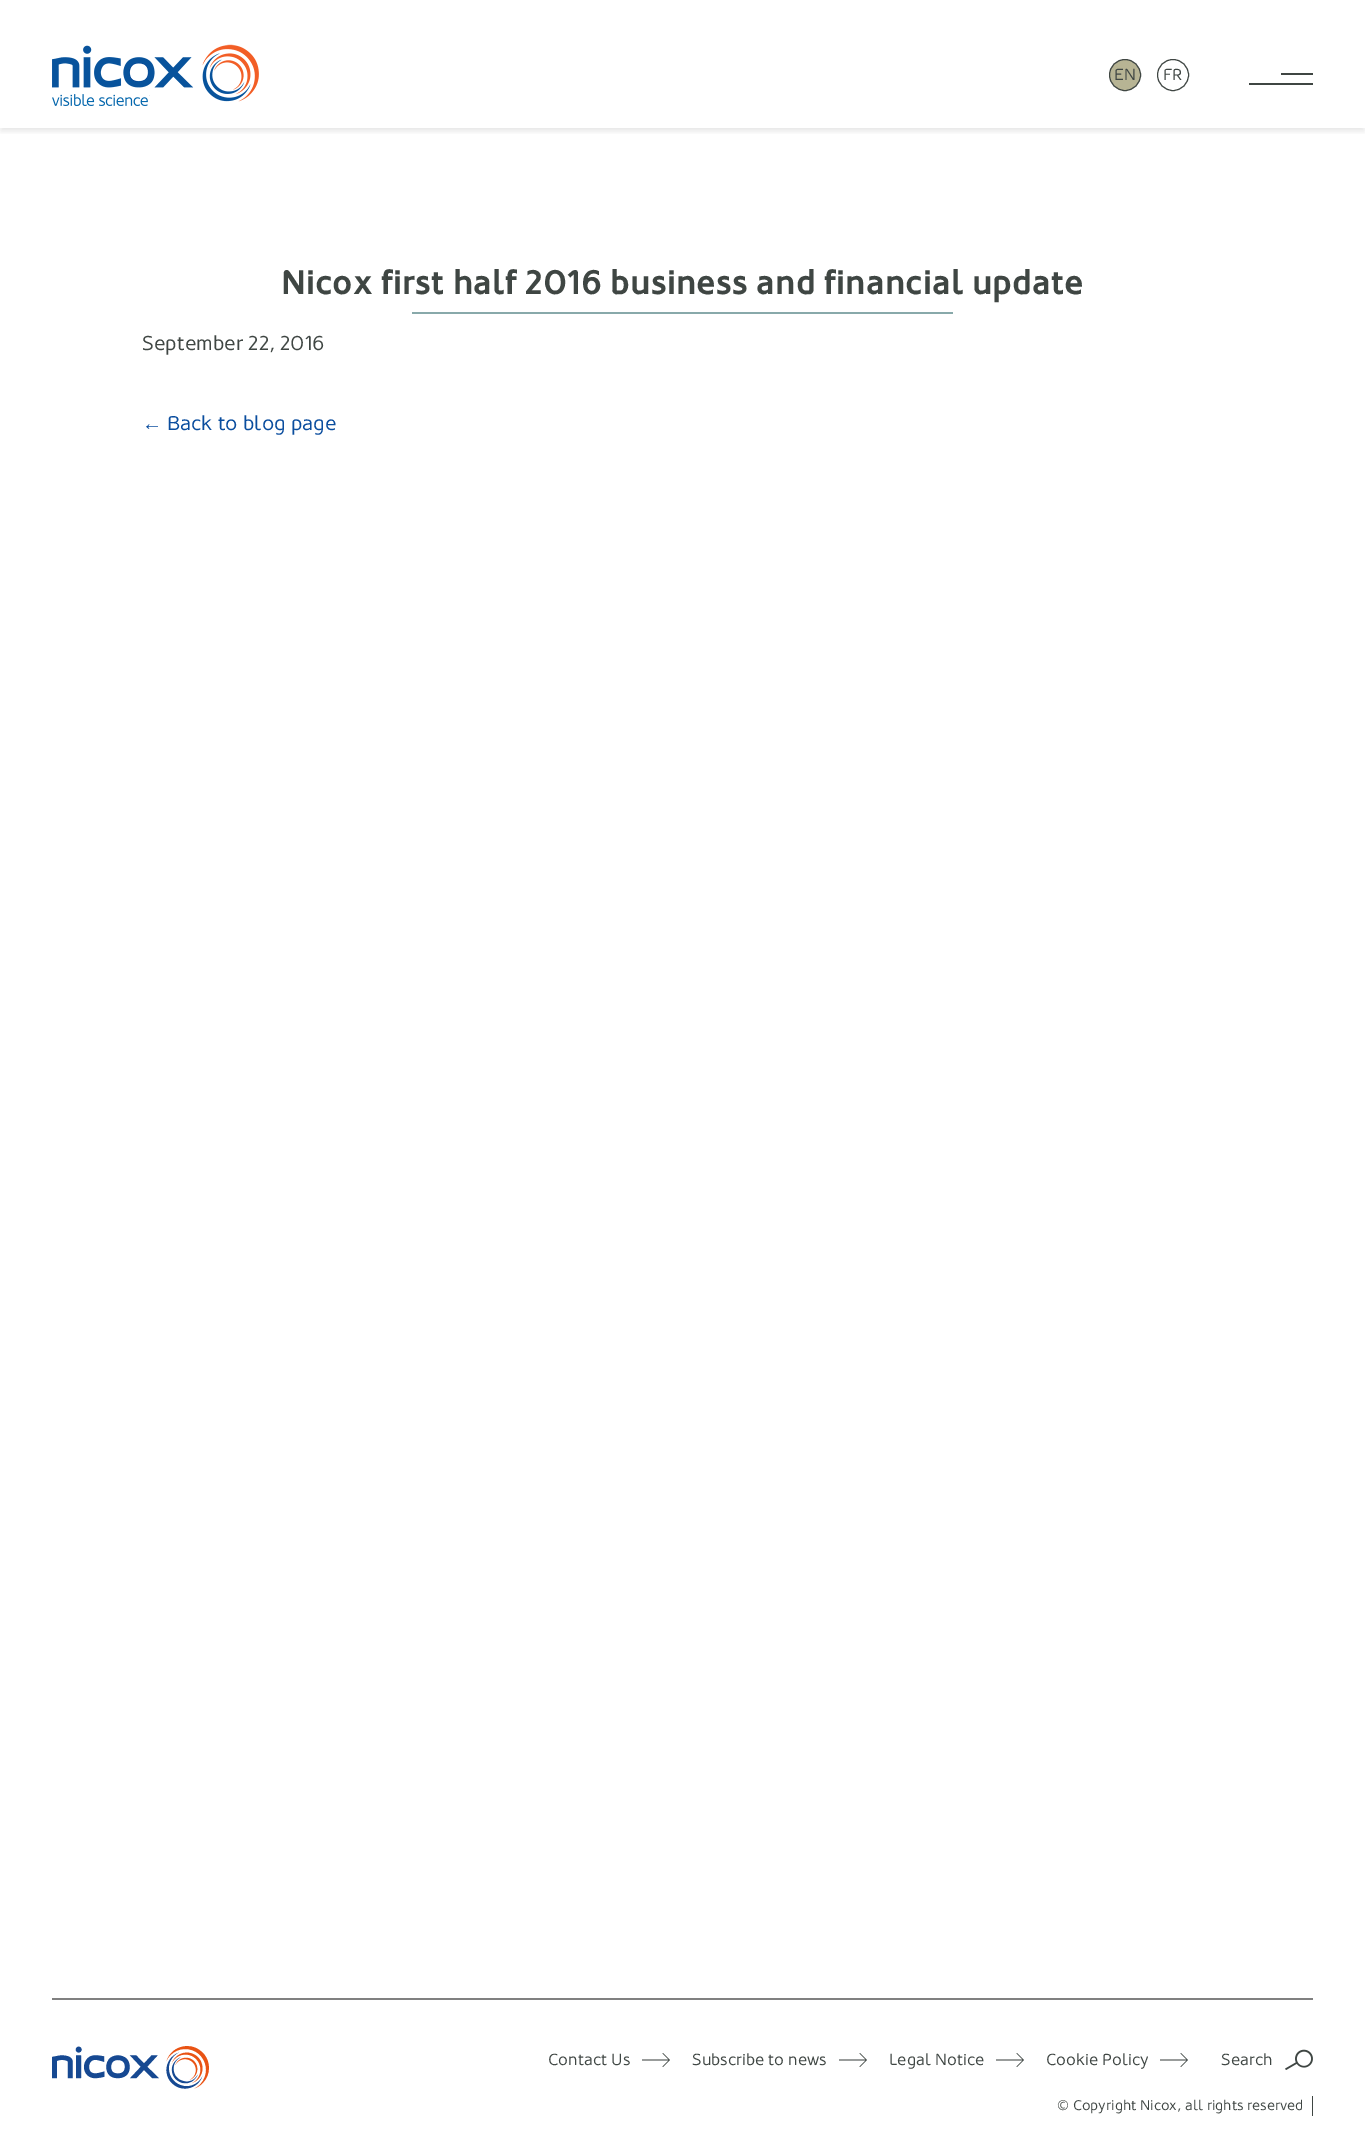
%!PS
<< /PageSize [1365 2150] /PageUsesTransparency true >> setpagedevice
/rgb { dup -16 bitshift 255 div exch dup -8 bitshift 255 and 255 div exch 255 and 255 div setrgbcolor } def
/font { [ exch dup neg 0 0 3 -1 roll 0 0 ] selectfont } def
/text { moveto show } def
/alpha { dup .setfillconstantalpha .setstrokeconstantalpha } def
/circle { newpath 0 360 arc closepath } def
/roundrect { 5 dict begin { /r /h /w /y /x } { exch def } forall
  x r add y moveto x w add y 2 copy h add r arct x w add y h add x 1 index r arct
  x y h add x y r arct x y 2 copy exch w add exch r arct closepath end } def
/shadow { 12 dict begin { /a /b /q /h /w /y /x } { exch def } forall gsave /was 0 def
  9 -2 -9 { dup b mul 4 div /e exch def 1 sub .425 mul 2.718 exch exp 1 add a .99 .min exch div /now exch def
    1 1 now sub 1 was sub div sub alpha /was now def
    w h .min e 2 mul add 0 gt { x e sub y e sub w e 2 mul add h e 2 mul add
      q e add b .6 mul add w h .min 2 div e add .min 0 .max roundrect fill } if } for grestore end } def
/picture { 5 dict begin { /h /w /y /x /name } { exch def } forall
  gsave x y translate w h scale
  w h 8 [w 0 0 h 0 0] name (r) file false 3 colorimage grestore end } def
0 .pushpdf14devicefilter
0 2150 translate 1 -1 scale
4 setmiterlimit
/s1 { /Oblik-Regular 16 font 16#3F4643 rgb } def
/s2 { /Oblik-Bold 34 font 16#3F4643 rgb } def
/s3 { /Oblik-Regular 20 font 16#3F4643 rgb } def
/s4 { /LiberationSans-Regular 20 font 16#0A4D9E rgb } def
/s5 { /Oblik-Regular 20 font 16#0A4D9E rgb } def
/s6 { /Oblik-Regular 14 font 16#3F4643 rgb } def
16#FFFFFF rgb
0 0 1365 2150 rectfill
gsave
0 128 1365 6 rectclip
16#000000 rgb
1 5 1363 126 0 3 0.1 shadow
grestore
(pic1.raw) 52 44 207 62 picture
16#B7B494 rgb
1125 75 15.5 circle gsave fill grestore
16#3F4643 rgb
stroke
s1
(EN) 1114 80 text
1173 75 15.5 circle stroke
(FR) 1163 80 text
1249 83 64 2 rectfill
1281 73 32 2 rectfill
s2
(Nicox first half 2016 business and financial update) 281 294 text
16#88A9AA rgb
412 312 541 2 rectfill
s3
(September 22, 2016) 142 350 text
s4
(←) 142 430 text
s5
(Back to blog page) 167 430 text
16#808080 rgb
52 1998 1261 2 rectfill
(pic2.raw) 52 2046 157 43 picture
s1
(Contact Us) 548 2065 text
663 2053 moveto 662.5 2053.5 lineto 668.5 2059.5 lineto 642 2059.5 lineto 642 2060.5 lineto 668.5 2060.5 lineto 662.5 2066.5 lineto 663 2067 lineto 670 2060 lineto closepath fill
(Subscribe to news) 692 2065 text
860 2053 moveto 859.5 2053.5 lineto 865.5 2059.5 lineto 839 2059.5 lineto 839 2060.5 lineto 865.5 2060.5 lineto 859.5 2066.5 lineto 860 2067 lineto 867 2060 lineto closepath fill
(Legal Notice) 889 2065 text
1017 2053 moveto 1016.5 2053.5 lineto 1022.5 2059.5 lineto 996 2059.5 lineto 996 2060.5 lineto 1022.5 2060.5 lineto 1016.5 2066.5 lineto 1017 2067 lineto 1024 2060 lineto closepath fill
(Cookie Policy) 1046 2065 text
1181 2053 moveto 1180.5 2053.5 lineto 1186.5 2059.5 lineto 1160 2059.5 lineto 1160 2060.5 lineto 1186.5 2060.5 lineto 1180.5 2066.5 lineto 1181 2067 lineto 1188 2060 lineto closepath fill
(Search) 1221 2065 text
(pic3.raw) 1285 2049 28 21 picture
1312 2096 1 20 rectfill
s6
(© Copyright Nicox, all rights reserved) 1057 2110 text
.poppdf14devicefilter showpage
